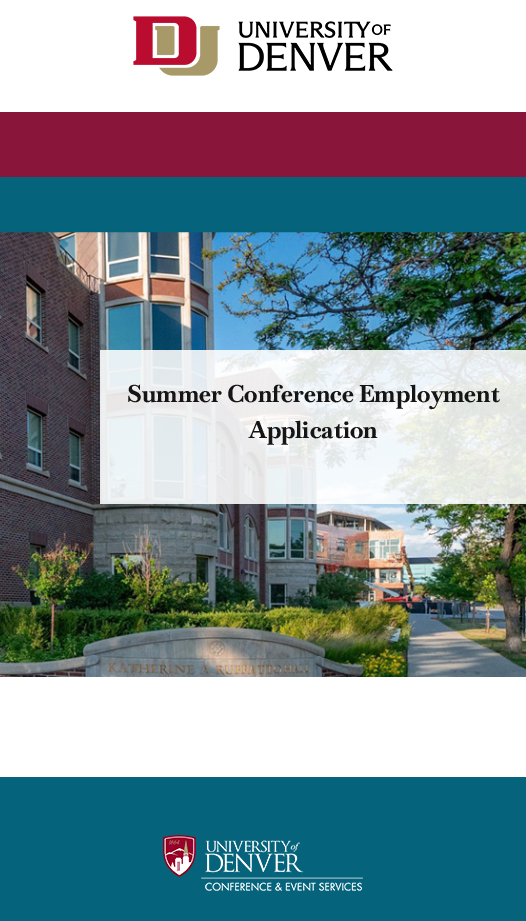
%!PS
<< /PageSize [526 921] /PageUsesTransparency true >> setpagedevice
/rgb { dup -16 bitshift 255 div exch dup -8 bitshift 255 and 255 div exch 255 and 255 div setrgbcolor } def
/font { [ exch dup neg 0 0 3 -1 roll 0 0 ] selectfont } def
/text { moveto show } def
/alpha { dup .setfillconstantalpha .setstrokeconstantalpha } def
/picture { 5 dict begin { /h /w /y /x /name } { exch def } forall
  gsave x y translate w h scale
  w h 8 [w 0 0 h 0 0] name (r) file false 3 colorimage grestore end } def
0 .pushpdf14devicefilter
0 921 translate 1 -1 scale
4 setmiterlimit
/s1 { /Baskervville-Bold 24 font 16#151515 rgb } def
16#FFFFFF rgb
0 0 526 921 rectfill
(pic1.raw) 133 16 260 60 picture
16#8A153B rgb
0 112 526 65 rectfill
(pic2.raw) 0 177 526 500 picture
0.88 alpha
16#FFFFFF rgb
100 350 426 154 rectfill
1 alpha
s1
(Summer Conference Employment) 127 402 text
(Application) 249 438 text
16#05637B rgb
0 777 526 144 rectfill
(pic3.raw) 163 835 200 56 picture
.poppdf14devicefilter showpage
